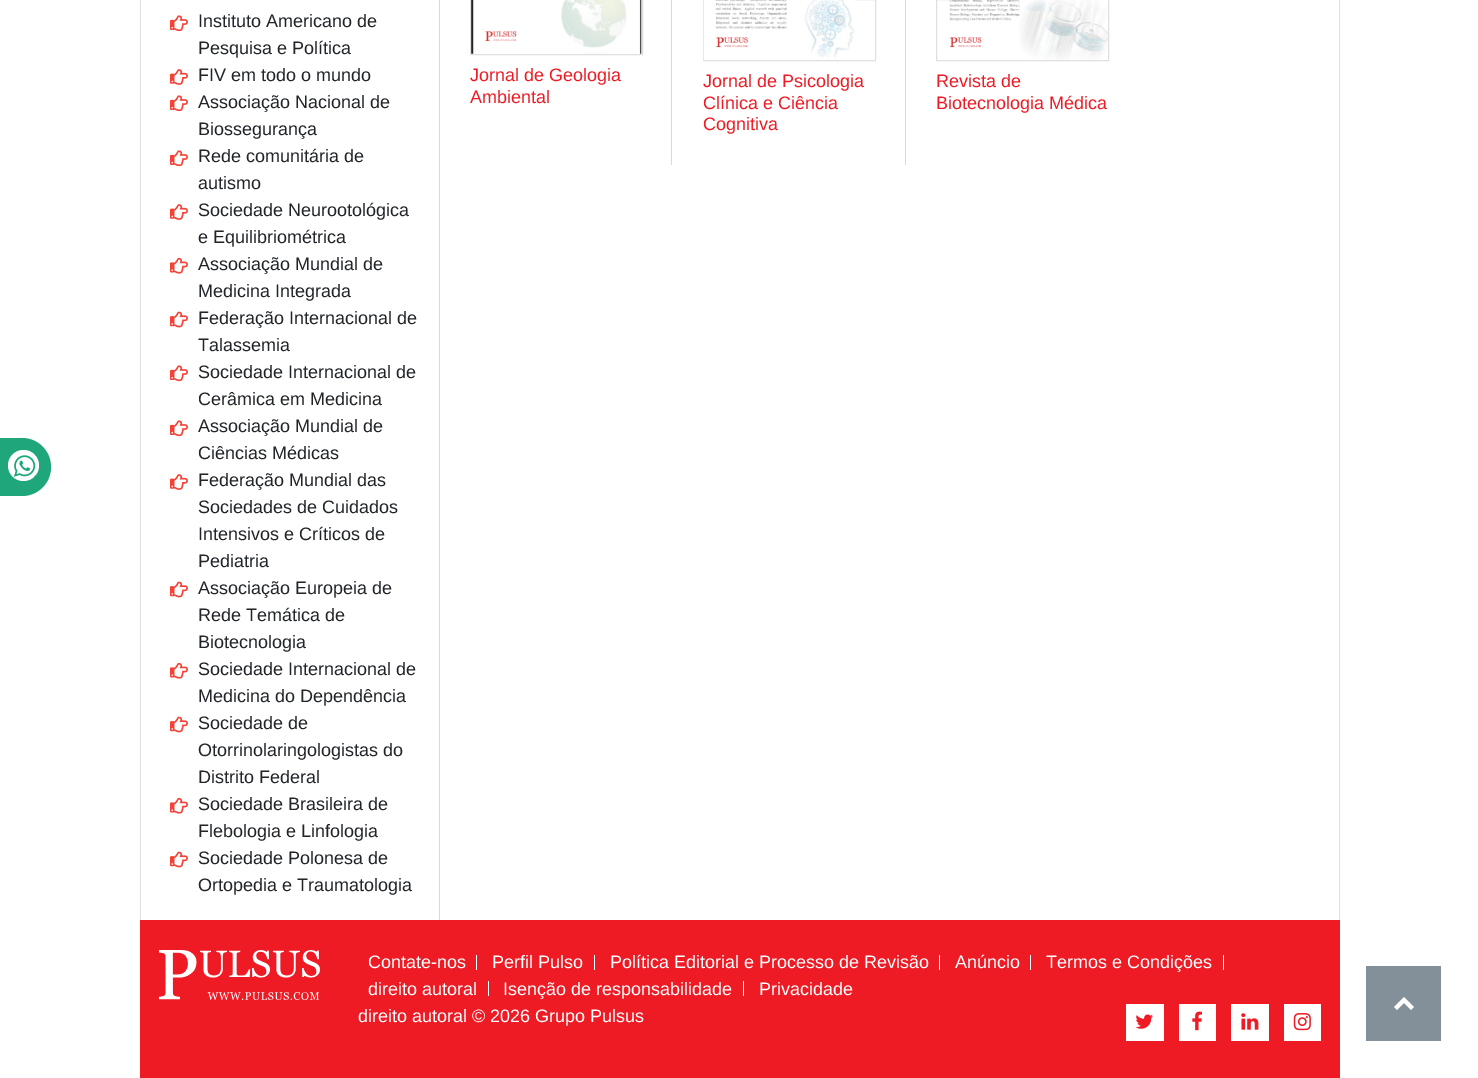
%!PS
<< /PageSize [1478 1078] >> setpagedevice
/rgb { dup -16 bitshift 255 div exch dup -8 bitshift 255 and 255 div exch 255 and 255 div setrgbcolor } def
/font { [ exch dup neg 0 0 3 -1 roll 0 0 ] selectfont } def
/text { moveto show } def
/circle { newpath 0 360 arc closepath } def
/picture { 5 dict begin { /h /w /y /x /name } { exch def } forall
  gsave x y translate w h scale
  w h 8 [w 0 0 h 0 0] name (r) file false 3 colorimage grestore end } def
0 1078 translate 1 -1 scale
4 setmiterlimit
/s1 { /LiberationSans-Regular 18 font 16#212529 rgb } def
/s2 { /LiberationSans-Regular 18 font 16#ED1C24 rgb } def
/s3 { /LiberationSans-Regular 18 font 16#FFFFFF rgb } def
16#FFFFFF rgb
0 0 1478 1078 rectfill
16#1FA67A rgb
-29 438 moveto 22 438 lineto 38 438 51 451 51 467 curveto 51 483 38 496 22 496 curveto -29 496 lineto closepath fill
16#FFFFFF rgb
23.5 465.5 15.5 circle fill
(pic1.raw) 13 455 23 22 picture
16#E0E0E0 rgb
1339 0 1 920 rectfill
140 0 1 920 rectfill
16#DADADA rgb
439 0 1 920 rectfill
(pic2.raw) 170 15 18 17 picture
s1
(Instituto Americano de) 198 27 text
(Pesquisa e Política) 198 54 text
(pic3.raw) 170 69 18 16 picture
(FIV em todo o mundo) 198 81 text
(pic2.raw) 170 95 18 17 picture
(Associação Nacional de) 198 108 text
(Biossegurança) 198 135 text
(pic2.raw) 170 150 18 17 picture
(Rede comunitária de) 198 162 text
(autismo) 198 189 text
(pic3.raw) 170 204 18 16 picture
(Sociedade Neurootológica) 198 216 text
(e Equilibriométrica) 198 243 text
(pic4.raw) 170 257 18 17 picture
(Associação Mundial de) 198 270 text
(Medicina Integrada) 198 297 text
(pic5.raw) 170 311 18 17 picture
(Federação Internacional de) 198 324 text
(Talassemia) 198 351 text
(pic2.raw) 170 365 18 17 picture
(Sociedade Internacional de) 198 378 text
(Cerâmica em Medicina) 198 405 text
(pic2.raw) 170 420 18 17 picture
(Associação Mundial de) 198 432 text
(Ciências Médicas) 198 459 text
(pic3.raw) 170 474 18 16 picture
(Federação Mundial das) 198 486 text
(Sociedades de Cuidados) 198 513 text
(Intensivos e Críticos de) 198 540 text
(Pediatria) 198 567 text
(pic5.raw) 170 581 18 17 picture
(Associação Europeia de) 198 594 text
(Rede Temática de) 198 621 text
(Biotecnologia) 198 648 text
(pic4.raw) 170 662 18 17 picture
(Sociedade Internacional de) 198 675 text
(Medicina do Dependência) 198 702 text
(pic5.raw) 170 716 18 17 picture
(Sociedade de) 198 729 text
(Otorrinolaringologistas do) 198 756 text
(Distrito Federal) 198 783 text
(pic4.raw) 170 797 18 17 picture
(Sociedade Brasileira de) 198 810 text
(Flebologia e Linfologia) 198 837 text
(pic5.raw) 170 851 18 17 picture
(Sociedade Polonesa de) 198 864 text
(Ortopedia e Traumatologia) 198 891 text
16#E0E0E0 rgb
470.5 -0.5 172 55 rectstroke
(pic6.raw) 471 0 171 54 picture
s2
(Jornal de Geologia) 470 81 text
(Ambiental) 470 103 text
16#DADADA rgb
671 0 1 165 rectfill
16#E0E0E0 rgb
703.5 -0.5 172 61 rectstroke
(pic7.raw) 703 0 152 60 picture
s2
(Jornal de Psicologia) 703 87 text
(Clínica e Ciência) 703 109 text
(Cognitiva) 703 130 text
16#DADADA rgb
905 0 1 165 rectfill
16#E0E0E0 rgb
936.5 -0.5 172 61 rectstroke
(pic8.raw) 949 0 159 60 picture
s2
(Revista de) 936 87 text
(Biotecnologia Médica) 936 109 text
16#EE1A24 rgb
140 920 1200 158 rectfill
(pic9.raw) 159 950 161 50 picture
16#FFFFFF rgb
476 955 1 15 rectfill
(Contate-nos) 368 968 text
594 955 1 15 rectfill
(Perfil Pulso) 492 968 text
939 955 1 15 rectfill
(Política Editorial e Processo de Revisão) 610 968 text
1030 955 1 15 rectfill
(Anúncio) 955 968 text
1223 955 1 15 rectfill
(Termos e Condições) 1046 968 text
488 981 1 15 rectfill
(direito autoral) 368 995 text
743 981 1 15 rectfill
(Isenção de responsabilidade) 503 995 text
(Privacidade) 759 995 text
(direito autoral © 2026 Grupo Pulsus) 358 1022 text
1126 1004 38 37 rectfill
(pic10.raw) 1135 1014 18 15 picture
1179 1004 37 37 rectfill
(pic11.raw) 1192 1011 10 20 picture
1231 1004 38 37 rectfill
(pic12.raw) 1241 1013 18 17 picture
1284 1004 37 37 rectfill
(pic13.raw) 1293 1013 18 18 picture
16#838F99 rgb
1366 966 75 75 rectfill
16#FFFFFF rgb
1404 997 moveto 1414 1007 lineto 1411 1010 lineto 1404 1003 lineto 1397 1010 lineto 1394 1007 lineto closepath fill
showpage
